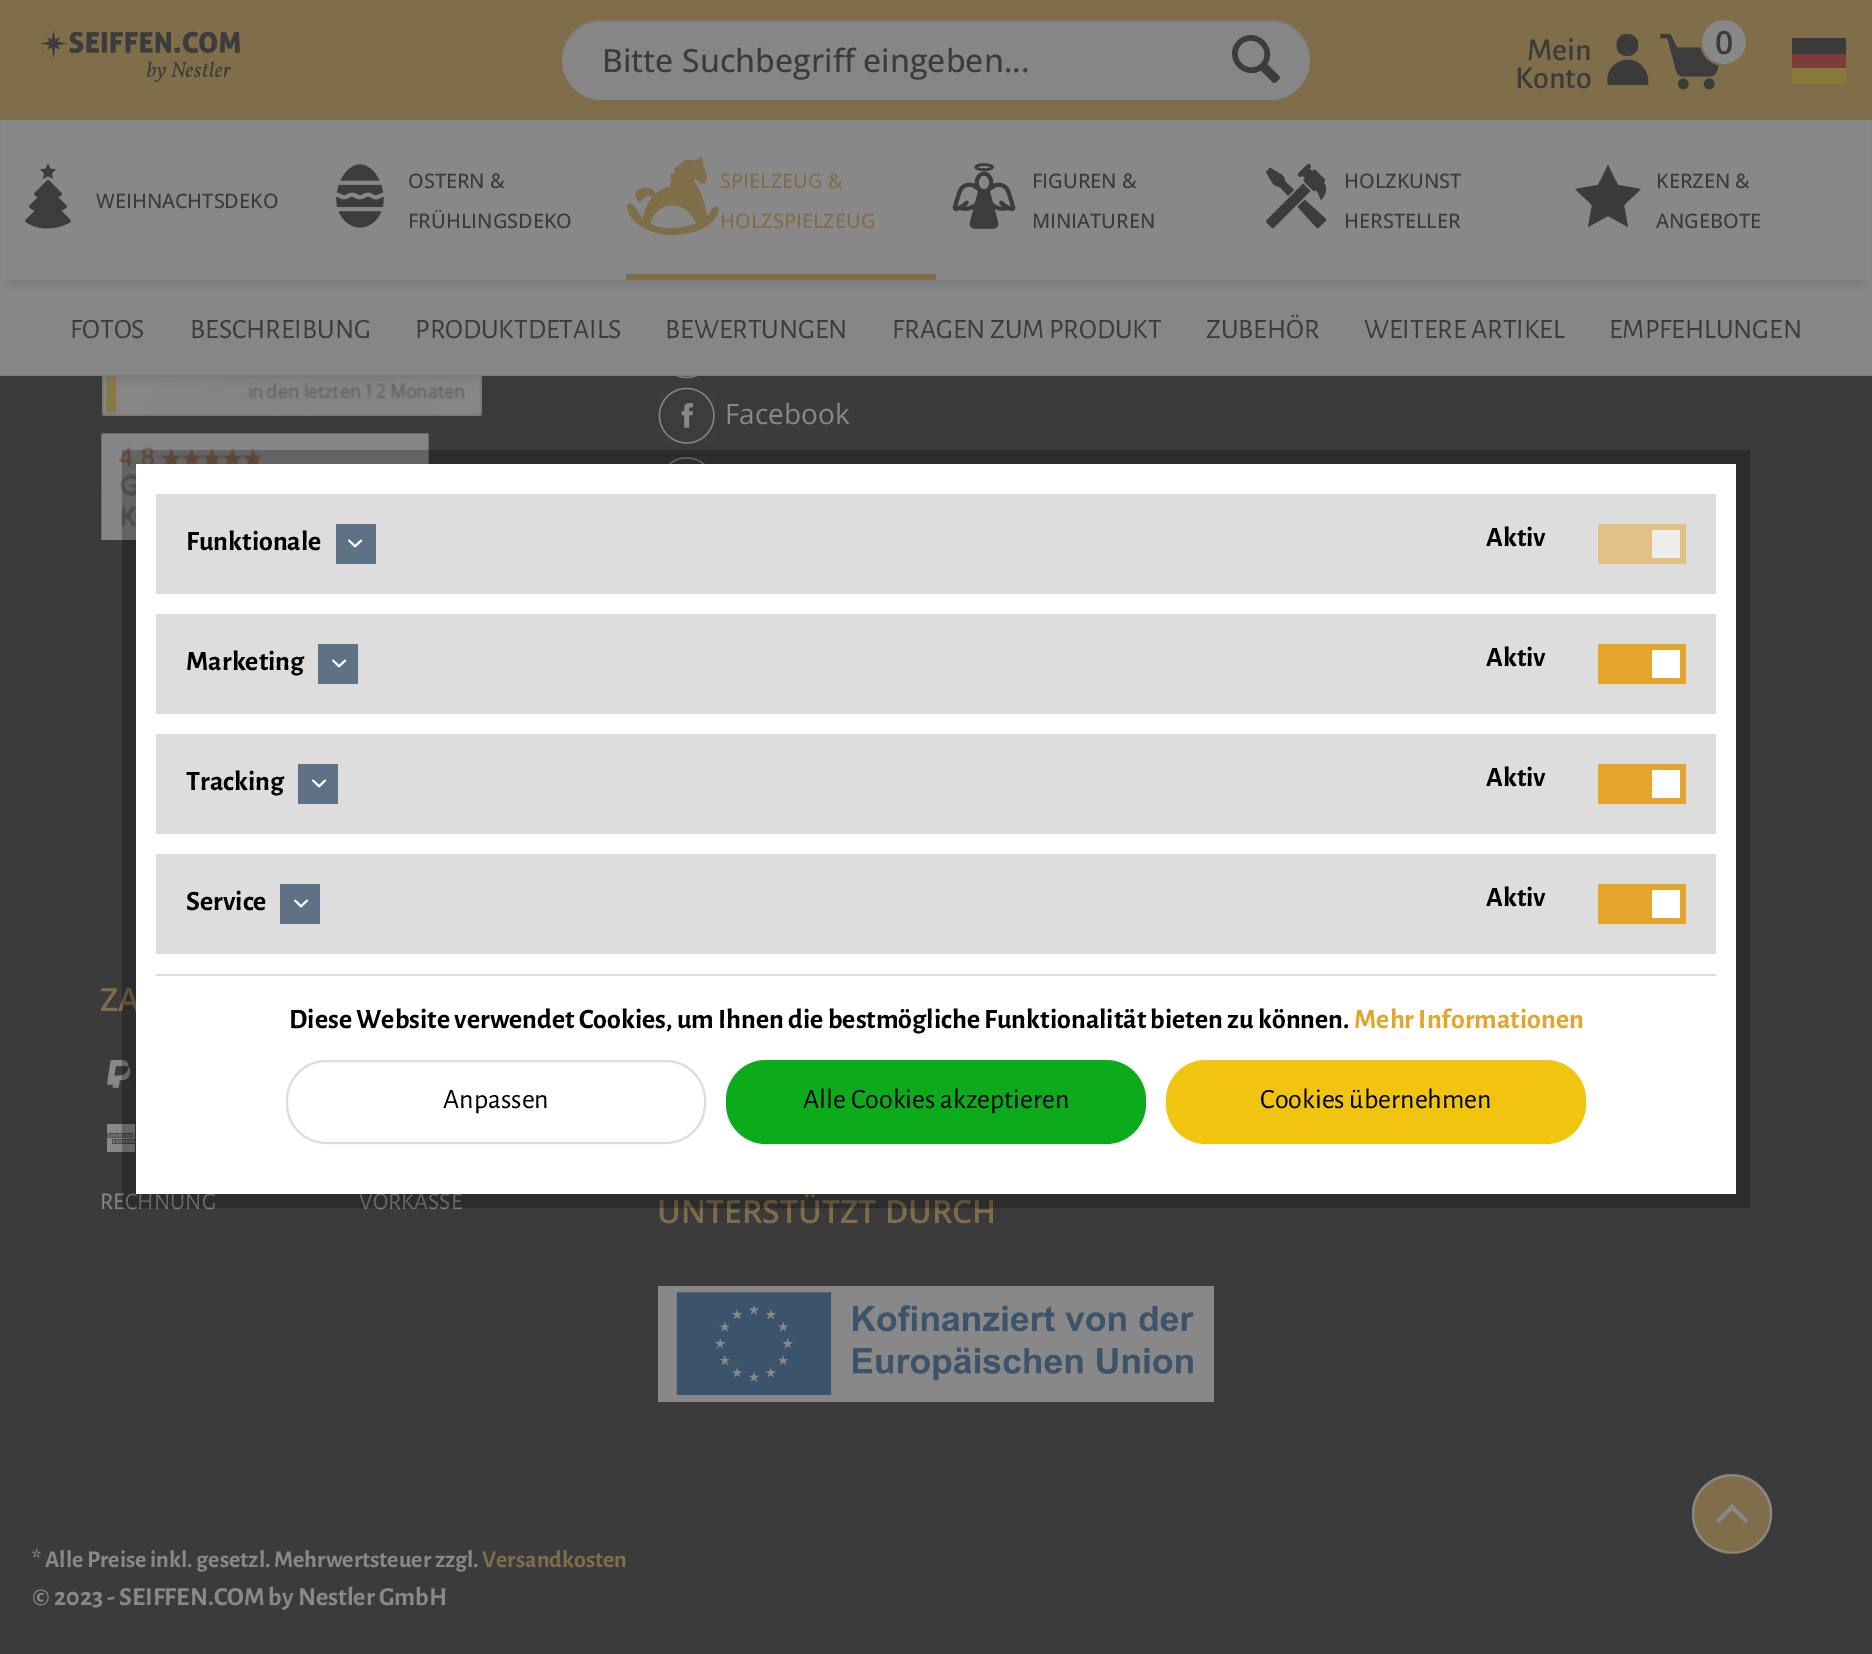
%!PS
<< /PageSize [1872 1654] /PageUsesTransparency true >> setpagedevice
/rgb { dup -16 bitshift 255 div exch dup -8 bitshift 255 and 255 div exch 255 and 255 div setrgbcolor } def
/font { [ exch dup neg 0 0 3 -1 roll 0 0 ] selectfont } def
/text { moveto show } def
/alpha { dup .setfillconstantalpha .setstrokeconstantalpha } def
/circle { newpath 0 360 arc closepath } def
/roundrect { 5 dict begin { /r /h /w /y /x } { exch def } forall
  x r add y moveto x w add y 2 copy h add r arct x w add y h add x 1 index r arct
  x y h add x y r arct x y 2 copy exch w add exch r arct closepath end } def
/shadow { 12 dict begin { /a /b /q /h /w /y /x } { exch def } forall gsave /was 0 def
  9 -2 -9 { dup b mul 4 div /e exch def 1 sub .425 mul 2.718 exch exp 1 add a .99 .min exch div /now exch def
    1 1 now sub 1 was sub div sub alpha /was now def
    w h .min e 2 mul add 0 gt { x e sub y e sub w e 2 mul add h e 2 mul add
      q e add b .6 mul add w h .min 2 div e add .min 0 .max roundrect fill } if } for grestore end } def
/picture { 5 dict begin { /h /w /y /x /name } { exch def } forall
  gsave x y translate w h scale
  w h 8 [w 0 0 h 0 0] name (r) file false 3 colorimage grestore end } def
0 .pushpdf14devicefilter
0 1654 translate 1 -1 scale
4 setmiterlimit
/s1 { /OpenSans-Medium 32 font 16#3B3B3B rgb } def
/s2 { /AlegreyaSans-Medium 32 font 16#3B3B3B rgb } def
/s3 { /OpenSans-SemiBold 32 font 16#3B3B3B rgb } def
/s4 { /OpenSans-Medium 20 font 16#3B3B3B rgb } def
/s5 { /OpenSans-Medium 20 font 16#806D49 rgb } def
/s6 { /AlegreyaSans-Regular 28 font 16#3B3B3B rgb } def
/s7 { /OpenSans-Regular 28 font 16#888888 rgb } def
/s8 { /OpenSans-SemiBold 32 font 16#806D49 rgb } def
/s9 { /AlegreyaSans-Regular 24 font 16#888888 rgb } def
/s10 { /AlegreyaSans-Bold 24 font 16#888888 rgb } def
/s11 { /AlegreyaSans-Bold 24 font 16#806D49 rgb } def
/s12 { /AlegreyaSans-Bold 26 font 16#888888 rgb } def
/s13 { /AlegreyaSans-Bold 28 font 16#000000 rgb } def
/s14 { /AlegreyaSans-Bold 28 font 16#E5A52C rgb } def
/s15 { /AlegreyaSans-Regular 28 font 16#000000 rgb } def
16#3B3B3B rgb
0 0 1872 1654 rectfill
16#806D49 rgb
0 0 1872 120 rectfill
(pic1.raw) 40 30 200 52 picture
16#868686 rgb
562 20 748 80 40 roundrect fill
16#7E7E7E rgb
602 22 moveto 1270 22 lineto 1292 22 1309 39 1310 61 curveto 1311 39 1292 20 1270 20 curveto 602 20 lineto 580 20 561 39 562 61 curveto 563 39 580 22 602 22 curveto closepath fill
s1
(Bitte Suchbegriff eingeben...) 602 72 text
(pic2.raw) 1232 35 48 48 picture
s2
(Mein) 1527 60 text
(Konto) 1515 88 text
1627 56 moveto 1642 56 1642 34 1627 34 curveto 1613 34 1613 56 1627 56 curveto closepath 1642 66 moveto 1628 51 1603 65 1608 85 curveto 1648 85 lineto 1649 78 1647 71 1642 66 curveto closepath fill
(pic3.raw) 1660 33 59 57 picture
16#888888 rgb
1724 42 23 circle gsave fill grestore
16#806D49 rgb
2 setlinewidth
stroke
s3
(0) 1715 54 text
1792 38 54 16 rectfill
16#7E3B3B rgb
1792 54 54 14 rectfill
16#88793B rgb
1792 68 54 16 rectfill
(pic9.raw) 102 376 380 40 picture
(pic11.raw) 676 376 22 3 picture
(pic12.raw) 658 387 57 57 picture
16#3B3B3B rgb
10 296 1852 80 0 5 0.3 shadow
16#868686 rgb
0 280 1872 94 rectfill
16#3B3B3B rgb
10 140 1852 140 0 5 0.3 shadow
16#888888 rgb
2 120 1868 160 rectfill
16#868686 rgb
0 120 2 160 rectfill
(pic4.raw) 25 163 46 66 picture
s4
(WEIHNACHTSDEKO) 96 208 text
(pic5.raw) 336 164 48 64 picture
(OSTERN &) 408 188 text
(FRÜHLINGSDEKO) 408 228 text
(pic6.raw) 627 156 92 80 picture
s5
(SPIELZEUG &) 720 188 text
(HOLZSPIELZEUG) 720 228 text
626 274 310 6 rectfill
(pic7.raw) 952 163 64 66 picture
s4
(FIGUREN &) 1032 188 text
(MINIATUREN) 1032 228 text
(pic8.raw) 1266 163 61 66 picture
(HOLZKUNST) 1344 188 text
(HERSTELLER) 1344 228 text
16#868686 rgb
1870 120 2 160 rectfill
16#3B3B3B rgb
1608 165 moveto 1618 185 lineto 1641 189 lineto 1624 205 lineto 1628 227 lineto 1608 216 lineto 1588 227 lineto 1592 205 lineto 1575 189 lineto 1598 185 lineto closepath fill
(KERZEN &) 1656 188 text
(ANGEBOTE) 1656 228 text
16#7E7E7E rgb
0 374 1872 2 rectfill
s6
(FOTOS) 70 338 text
(BESCHREIBUNG) 190 338 text
(PRODUKTDETAILS) 415 338 text
(BEWERTUNGEN) 665 338 text
(FRAGEN ZUM PRODUKT) 892 338 text
(ZUBEHÖR) 1206 338 text
(WEITERE ARTIKEL) 1364 338 text
(EMPFEHLUNGEN) 1609 338 text
(pic10.raw) 101 433 329 107 picture
s7
(Facebook) 725 424 text
(pic13.raw) 668 457 37 7 picture
s8
(ZA) 100 1011 text
(pic14.raw) 107 1060 24 28 picture
(pic15.raw) 107 1124 29 28 picture
s9
(RECHNUNG) 100 1209 text
(VORKASSE) 359 1209 text
s8
(UNTERSTÜTZT DURCH) 657 1223 text
(pic16.raw) 658 1286 556 116 picture
s10
(* Alle Preise inkl. gesetzl. Mehrwertsteuer zzgl.) 32 1567 text
s11
(Versandkosten) 482 1567 text
1732 1514 40 circle fill
16#888888 rgb
1692 1514 moveto 1692 1490 1714 1471 1738 1475 curveto 1757 1478 1773 1495 1772 1514 curveto 1770 1568 1692 1564 1692 1514 curveto closepath 1770 1514 moveto 1770 1506 1768 1499 1763 1493 curveto 1743 1462 1694 1477 1694 1514 curveto 1694 1551 1743 1566 1764 1535 curveto 1768 1529 1770 1522 1770 1514 curveto closepath 1719 1523 moveto 1716 1520 lineto 1732 1504 lineto 1748 1520 lineto 1746 1523 lineto 1732 1510 lineto closepath eofill
s12
(© 2023 - SEIFFEN.COM by Nestler GmbH) 32 1605 text
0.25 alpha
16#000000 rgb
14 setlinewidth
129 457 1614 744 rectstroke
1 alpha
16#FFFFFF rgb
136 464 1600 730 rectfill
16#DDDDDD rgb
156 974 1560 2 rectfill
156 494 1560 100 rectfill
s13
(Funktionale) 186 550 text
16#5F7285 rgb
336 524 40 40 rectfill
(pic17.raw) 348 539 15 9 picture
s13
(Aktiv) 1486 546 text
16#E1C185 rgb
1598 524 88 40 rectfill
16#EEEEEE rgb
1652 530 28 28 rectfill
16#DDDDDD rgb
156 614 1560 100 rectfill
s13
(Marketing) 186 670 text
16#5F7285 rgb
318 644 40 40 rectfill
(pic17.raw) 332 659 15 9 picture
s13
(Aktiv) 1486 666 text
16#E5A52C rgb
1598 644 88 40 rectfill
16#FFFFFF rgb
1652 650 28 28 rectfill
16#DDDDDD rgb
156 734 1560 100 rectfill
s13
(Tracking) 186 790 text
16#5F7285 rgb
298 764 40 40 rectfill
(pic17.raw) 312 779 15 9 picture
s13
(Aktiv) 1486 786 text
16#E5A52C rgb
1598 764 88 40 rectfill
16#FFFFFF rgb
1652 770 28 28 rectfill
16#DDDDDD rgb
156 854 1560 100 rectfill
s13
(Service) 186 910 text
16#5F7285 rgb
280 884 40 40 rectfill
(pic17.raw) 294 899 15 9 picture
s13
(Aktiv) 1486 906 text
16#E5A52C rgb
1598 884 88 40 rectfill
16#FFFFFF rgb
1652 890 28 28 rectfill
s13
(Diese Website verwendet Cookies, um Ihnen die bestmögliche Funktionalität bieten zu können.) 289 1028 text
s14
(Mehr Informationen) 1354 1028 text
16#DCDCDC rgb
2 setlinewidth
287 1061 418 82 39 roundrect stroke
s15
(Anpassen) 443 1108 text
16#0CAB1C rgb
726 1060 420 84 40 roundrect fill
s15
(Alle Cookies akzeptieren) 803 1108 text
16#F1C40F rgb
1166 1060 420 84 40 roundrect fill
s15
(Cookies übernehmen) 1260 1108 text
.poppdf14devicefilter showpage
